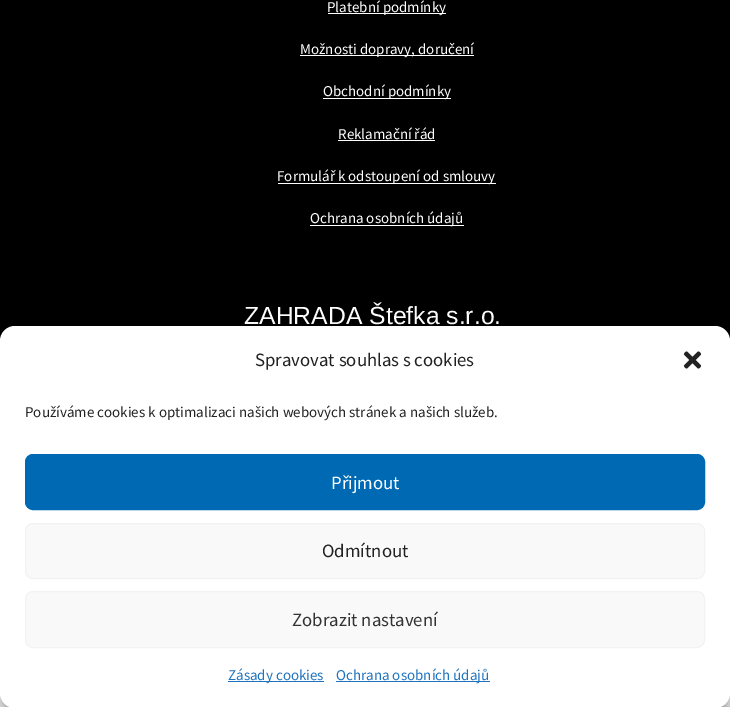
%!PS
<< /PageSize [730 707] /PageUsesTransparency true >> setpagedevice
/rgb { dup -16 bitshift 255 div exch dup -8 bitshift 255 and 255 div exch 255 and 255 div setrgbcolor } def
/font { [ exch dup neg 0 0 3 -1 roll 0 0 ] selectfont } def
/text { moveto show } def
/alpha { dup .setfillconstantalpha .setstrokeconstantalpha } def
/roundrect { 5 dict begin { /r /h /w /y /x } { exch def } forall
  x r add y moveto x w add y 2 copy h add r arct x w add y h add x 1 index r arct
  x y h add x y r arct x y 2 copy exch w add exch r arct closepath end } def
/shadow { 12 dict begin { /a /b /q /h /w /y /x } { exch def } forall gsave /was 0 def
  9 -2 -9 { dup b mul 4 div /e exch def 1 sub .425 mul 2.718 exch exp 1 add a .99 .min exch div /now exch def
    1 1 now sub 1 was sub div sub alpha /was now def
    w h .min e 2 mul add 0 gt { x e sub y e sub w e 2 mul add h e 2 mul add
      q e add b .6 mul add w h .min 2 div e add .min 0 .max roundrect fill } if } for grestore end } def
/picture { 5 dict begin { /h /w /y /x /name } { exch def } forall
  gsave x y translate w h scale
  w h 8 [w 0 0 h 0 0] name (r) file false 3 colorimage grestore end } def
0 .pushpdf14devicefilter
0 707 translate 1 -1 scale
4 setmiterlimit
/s1 { /SourceSansPro-Regular 15 font 16#FFFFFF rgb } def
/s2 { /LiberationSans-Regular 24.75 font 16#FFFFFF rgb } def
/s3 { /SourceSansPro-Regular 18.75 font 16#222222 rgb } def
/s4 { /SourceSansPro-Regular 15 font 16#222222 rgb } def
/s5 { /SourceSansPro-Regular 18.75 font 16#FFFFFF rgb } def
/s6 { /SourceSansPro-Regular 18.75 font 16#333333 rgb } def
/s7 { /SourceSansPro-Regular 15 font 16#1E73BE rgb } def
16#000000 rgb
0 0 730 707 rectfill
16#FFFFFF rgb
328 13 118 1 rectfill
s1
(Platební podmínky) 327 12 text
300 55 174 1 rectfill
(Možnosti dopravy, doručení) 300 54 text
323 98 128 1 rectfill
(Obchodní podmínky) 323 96 text
(Reklamační řád) 338 139 text
338 140 97 1 rectfill
278 183 218 1 rectfill
(Formulář k odstoupení od smlouvy) 277 181 text
310 225 154 1 rectfill
(Ochrana osobních údajů) 310 223 text
s2
(ZAHRADA Štefka s.r.o.) 244 324 text
0 693 10 14 rectfill
16#F0F0F0 rgb
720 706 10 1 rectfill
16#FFFFFF rgb
722 693 8 13 rectfill
16#000000 rgb
0 334 730 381 15 4 0.23 shadow
0 339 730 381 15 12.5 0.19 shadow
16#FFFFFF rgb
0 326 730 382 15 roundrect fill
s3
(Spravovat souhlas s cookies) 255 366 text
(pic1.raw) 683 351 19 18 picture
s4
(Používáme cookies k optimalizaci našich webových stránek a našich služeb.) 25 417 text
16#0069B4 rgb
25.5 454.5 679 55 7.5 roundrect gsave fill grestore
stroke
s5
(Přijmout) 331 489 text
16#F9F9F9 rgb
25.5 523.5 679 55 7.5 roundrect gsave fill grestore
16#F2F2F2 rgb
stroke
s3
(Odmítnout) 322 557 text
16#F9F9F9 rgb
25.5 591.5 679 56 7.5 roundrect gsave fill grestore
16#F2F2F2 rgb
stroke
s6
(Zobrazit nastavení) 292 626 text
16#1E73BE rgb
228 681 96 1 rectfill
s7
(Zásady cookies) 228 680 text
336 681 154 1 rectfill
(Ochrana osobních údajů) 336 680 text
.poppdf14devicefilter showpage
